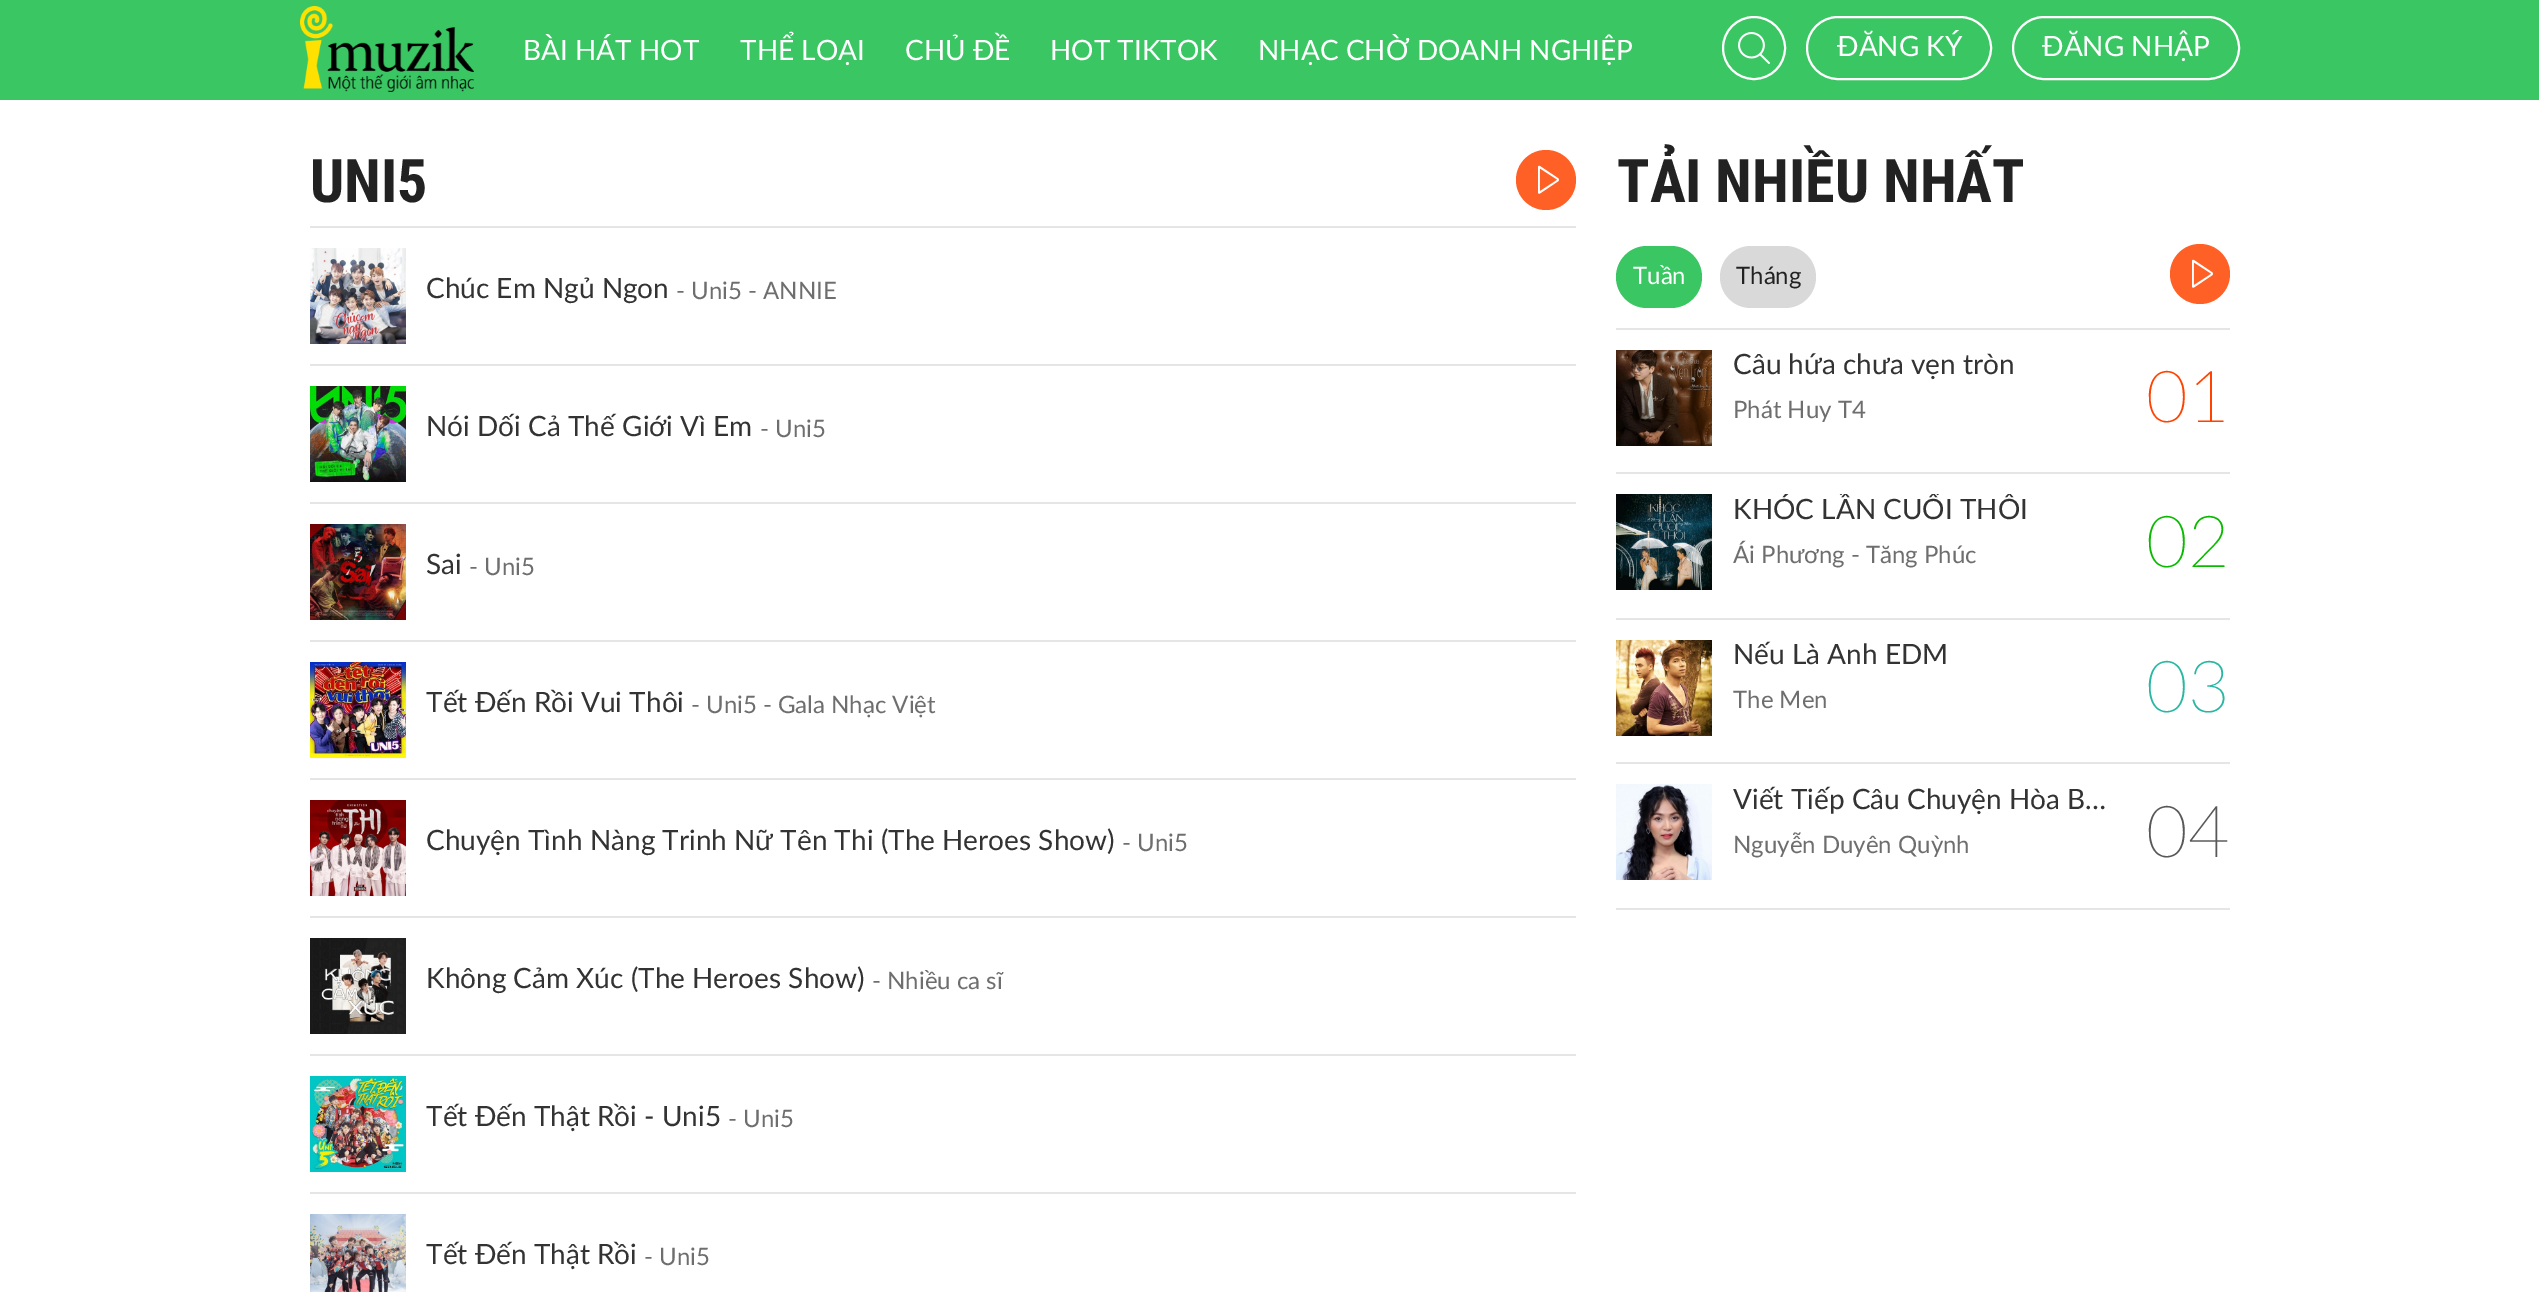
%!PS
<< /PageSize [2539 1292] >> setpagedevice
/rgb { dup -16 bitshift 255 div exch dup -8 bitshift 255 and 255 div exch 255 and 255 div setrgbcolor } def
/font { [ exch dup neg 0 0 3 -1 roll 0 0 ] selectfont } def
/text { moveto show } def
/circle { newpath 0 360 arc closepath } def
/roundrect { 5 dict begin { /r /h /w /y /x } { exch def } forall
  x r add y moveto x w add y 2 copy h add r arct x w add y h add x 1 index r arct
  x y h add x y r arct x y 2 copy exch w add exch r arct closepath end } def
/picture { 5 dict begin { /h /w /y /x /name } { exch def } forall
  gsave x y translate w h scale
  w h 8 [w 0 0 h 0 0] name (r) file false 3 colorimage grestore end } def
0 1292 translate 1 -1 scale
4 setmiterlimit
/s1 { /Lato-Regular 28 font 16#FFFFFF rgb } def
/s2 { /RobotoCondensed-Bold 60 font 16#222222 rgb } def
/s3 { /Lato-Regular 28 font 16#333333 rgb } def
/s4 { /Lato-Regular 24 font 16#6E6E6E rgb } def
/s5 { /Lato-Regular 24 font 16#FFFFFF rgb } def
/s6 { /Lato-Regular 24 font 16#222222 rgb } def
/s7 { /Lato-Thin 72 font 16#FF4200 rgb } def
/s8 { /Lato-Thin 72 font 16#09BA00 rgb } def
/s9 { /Lato-Thin 72 font 16#28B7A3 rgb } def
/s10 { /Lato-Thin 72 font 16#585858 rgb } def
16#FFFFFF rgb
0 0 2539 1292 rectfill
16#3AC663 rgb
0 0 2539 100 rectfill
(pic1.raw) 300 6 174 86 picture
s1
(BÀI HÁT HOT) 523 60 text
(THỂ LOẠI) 740 60 text
(CHỦ ĐỀ) 905 60 text
(HOT TIKTOK) 1050 60 text
(NHẠC CHỜ DOANH NGHIỆP) 1258 60 text
2 setlinewidth
1754 48 31 circle stroke
(pic2.raw) 1738 32 32 32 picture
1807 17 184 62 31 roundrect stroke
(ĐĂNG KÝ) 1837 56 text
2013 17 226 62 31 roundrect stroke
(ĐĂNG NHẬP) 2042 56 text
s2
(UNI5) 310 202 text
16#FF6026 rgb
1546 180 30 circle fill
(pic3.raw) 1538 165 21 29 picture
16#E5E5E5 rgb
310 226 1266 2 rectfill
(pic4.raw) 310 248 96 96 picture
s3
(Chúc Em Ngủ Ngon) 426 298 text
s4
(- Uni5 - ANNIE) 676 299 text
16#E5E5E5 rgb
310 364 1266 2 rectfill
(pic5.raw) 310 386 96 96 picture
s3
(Nói Dối Cả Thế Giới Vì Em) 426 436 text
s4
(- Uni5) 760 437 text
16#E5E5E5 rgb
310 502 1266 2 rectfill
(pic6.raw) 310 524 96 96 picture
s3
(Sai) 426 574 text
s4
(- Uni5) 469 575 text
16#E5E5E5 rgb
310 640 1266 2 rectfill
(pic7.raw) 310 662 96 96 picture
s3
(Tết Đến Rồi Vui Thôi) 426 712 text
s4
(- Uni5 - Gala Nhạc Việt) 691 713 text
16#E5E5E5 rgb
310 778 1266 2 rectfill
(pic8.raw) 310 800 96 96 picture
s3
(Chuyện Tình Nàng Trinh Nữ Tên Thi \(The Heroes Show\)) 426 850 text
s4
(- Uni5) 1122 851 text
16#E5E5E5 rgb
310 916 1266 2 rectfill
(pic9.raw) 310 938 96 96 picture
s3
(Không Cảm Xúc \(The Heroes Show\)) 426 988 text
s4
(- Nhiều ca sĩ) 872 989 text
16#E5E5E5 rgb
310 1054 1266 2 rectfill
(pic10.raw) 310 1076 96 96 picture
s3
(Tết Đến Thật Rồi - Uni5) 426 1126 text
s4
(- Uni5) 728 1127 text
16#E5E5E5 rgb
310 1192 1266 2 rectfill
(pic11.raw) 310 1214 96 78 picture
s3
(Tết Đến Thật Rồi) 426 1264 text
s4
(- Uni5) 644 1265 text
s2
(TẢI NHIỀU NHẤT) 1617 202 text
16#3AC663 rgb
1616 246 86 62 31 roundrect fill
s5
(Tuần) 1633 284 text
16#D9D9D9 rgb
1720 246 96 62 31 roundrect fill
s6
(Tháng) 1736 284 text
16#FF6026 rgb
2200 274 30 circle fill
(pic3.raw) 2192 259 21 29 picture
16#E5E5E5 rgb
1616 328 614 2 rectfill
(pic12.raw) 1616 350 96 96 picture
s3
(Câu hứa chưa vẹn tròn) 1733 374 text
s4
(Phát Huy T4) 1733 418 text
s7
(01) 2146 422 text
16#E5E5E5 rgb
1616 472 614 2 rectfill
(pic13.raw) 1616 494 96 96 picture
gsave
1732 494 374 34 rectclip
s3
(KHÓC LẦN CUỐI THÔI) 1733 519 text
grestore
s4
(Ái Phương - Tăng Phúc) 1733 563 text
s8
(02) 2146 567 text
16#E5E5E5 rgb
1616 618 614 2 rectfill
(pic14.raw) 1616 640 96 96 picture
s3
(Nếu Là Anh EDM) 1733 664 text
s4
(The Men) 1733 708 text
s9
(03) 2146 712 text
16#E5E5E5 rgb
1616 762 614 2 rectfill
1616 908 614 2 rectfill
(pic15.raw) 1616 784 96 96 picture
s3
(Viết Tiếp Câu Chuyện Hòa B…) 1733 809 text
s4
(Nguyễn Duyên Quỳnh) 1733 853 text
s10
(04) 2146 857 text
showpage
